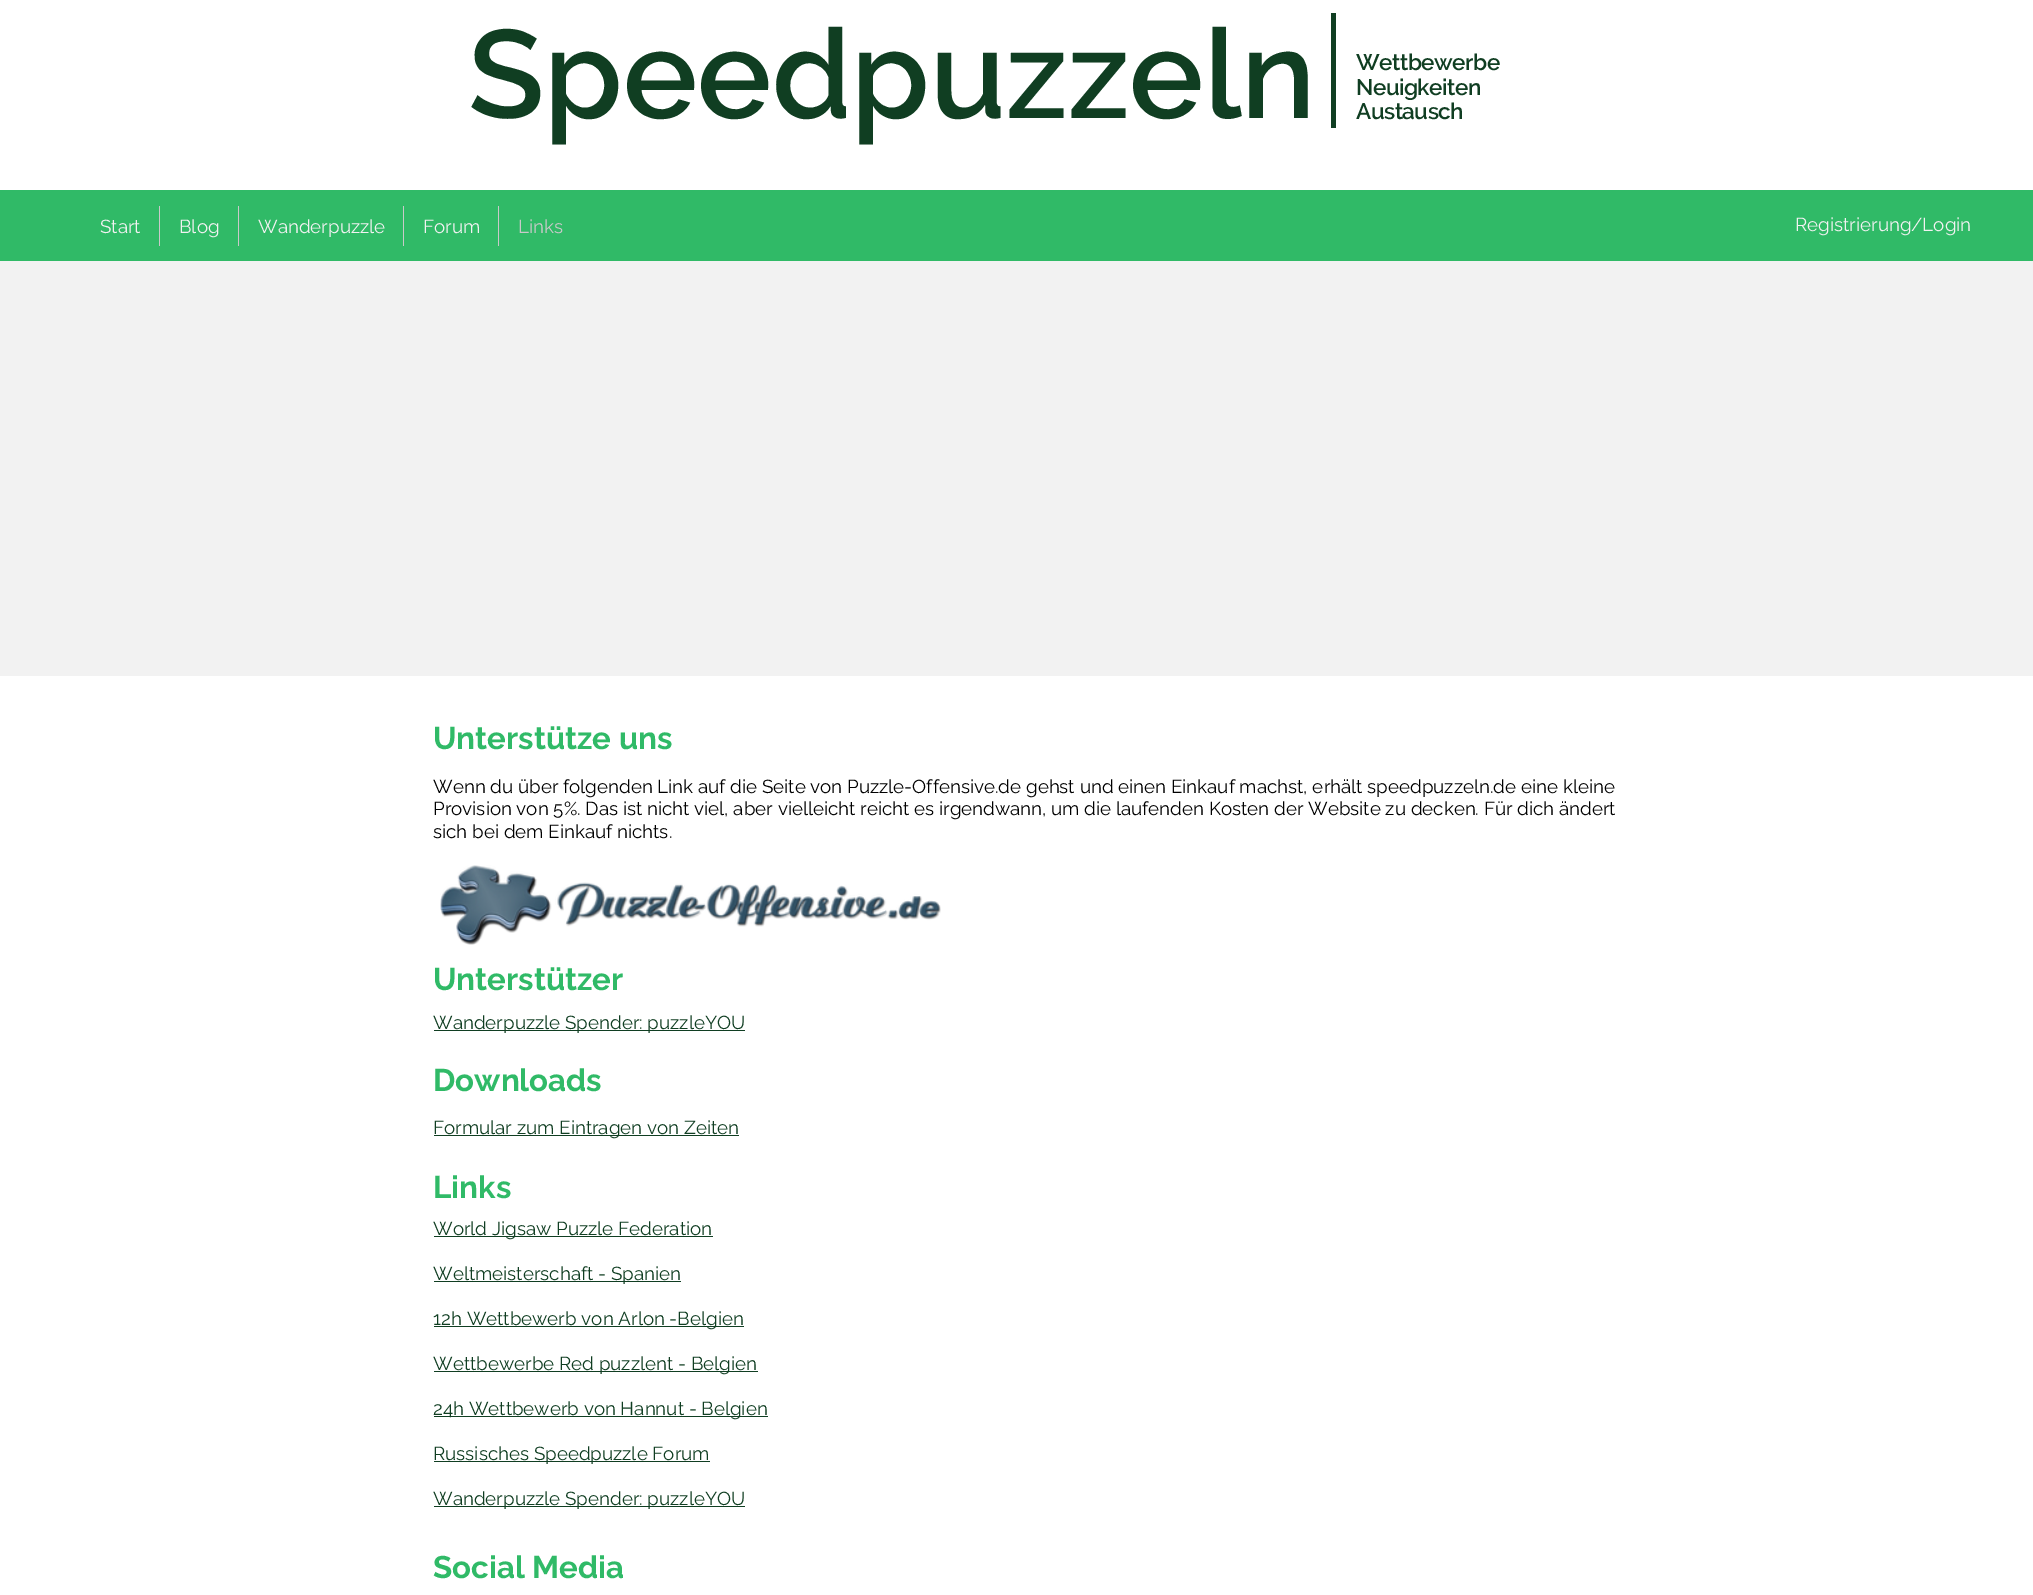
%!PS
<< /PageSize [2033 1595] >> setpagedevice
/rgb { dup -16 bitshift 255 div exch dup -8 bitshift 255 and 255 div exch 255 and 255 div setrgbcolor } def
/font { [ exch dup neg 0 0 3 -1 roll 0 0 ] selectfont } def
/text { moveto show } def
/picture { 5 dict begin { /h /w /y /x /name } { exch def } forall
  gsave x y translate w h scale
  w h 8 [w 0 0 h 0 0] name (r) file false 3 colorimage grestore end } def
0 1595 translate 1 -1 scale
4 setmiterlimit
/s1 { /Raleway-SemiBold 125 font 16#103E22 rgb } def
/s2 { /Raleway-Regular 18.75 font 16#F2F2F2 rgb } def
/s3 { /Raleway-Regular 18.75 font 16#C9C9C9 rgb } def
/s4 { /Raleway-Bold 31.25 font 16#30BA67 rgb } def
/s5 { /Raleway-Regular 18.75 font 16#000000 rgb } def
/s6 { /Raleway-Regular 18.75 font 16#103E22 rgb } def
16#FFFFFF rgb
0 0 2033 1595 rectfill
s1
(Speedpuzzeln) 468 118 text
1331 13 5 115 rectfill
/Raleway-SemiBold 22.5 font
1356 70 moveto -0.5 0 (Wettbewerbe) ashow
1356 95 moveto -0.5 0 (Neuigkeiten) ashow
1356 119 moveto -0.5 0 (Austausch) ashow
16#30BA67 rgb
0 190 2033 71 rectfill
s2
(Start) 100 233 text
16#C9C9C9 rgb
159 206 1 40 rectfill
s2
(Blog) 179 233 text
16#C9C9C9 rgb
238 206 1 40 rectfill
s2
(Wanderpuzzle) 258 233 text
16#C9C9C9 rgb
403 206 1 40 rectfill
s2
(Forum) 423 233 text
16#C9C9C9 rgb
498 206 1 40 rectfill
(Links) 518 233 text
s2
(Registrierung/Login) 1795 231 text
0 261 2033 415 rectfill
s4
(Unterstütze uns) 433 749 text
s5
(Wenn du über folgenden Link auf die Seite von Puzzle-Offensive.de gehst und einen Einkauf machst, erhält speedpuzzeln.de eine kleine) 433 793 text
(Provision von 5%. Das ist nicht viel, aber vielleicht reicht es irgendwann, um die laufenden Kosten der Website zu decken. Für dich ändert) 433 815 text
(sich bei dem Einkauf nichts.) 433 838 text
(pic1.raw) 440 865 501 80 picture
s4
(Unterstützer) 433 990 text
16#103E22 rgb
434 1030 311 1 rectfill
s6
(Wanderpuzzle Spender: puzzleYOU) 433 1029 text
s4
(Downloads) 433 1091 text
16#103E22 rgb
434 1135 305 1 rectfill
s6
(Formular zum Eintragen von Zeiten) 433 1134 text
s4
(Links) 433 1198 text
16#103E22 rgb
434 1236 279 1 rectfill
s6
(World Jigsaw Puzzle Federation) 433 1235 text
434 1281 247 1 rectfill
(Weltmeisterschaft - Spanien) 433 1280 text
434 1326 310 1 rectfill
(12h Wettbewerb von Arlon -Belgien) 433 1325 text
434 1371 324 1 rectfill
(Wettbewerbe Red puzzlent - Belgien) 433 1370 text
434 1416 334 1 rectfill
(24h Wettbewerb von Hannut - Belgien) 433 1415 text
434 1461 276 1 rectfill
(Russisches Speedpuzzle Forum) 433 1460 text
434 1506 311 1 rectfill
(Wanderpuzzle Spender: puzzleYOU) 433 1505 text
s4
(Social Media) 433 1578 text
showpage
